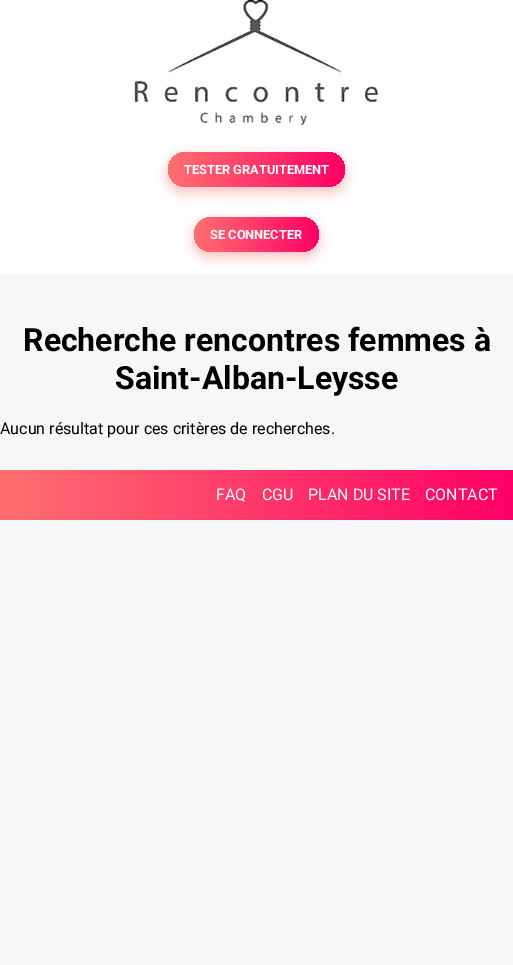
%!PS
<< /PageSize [513 965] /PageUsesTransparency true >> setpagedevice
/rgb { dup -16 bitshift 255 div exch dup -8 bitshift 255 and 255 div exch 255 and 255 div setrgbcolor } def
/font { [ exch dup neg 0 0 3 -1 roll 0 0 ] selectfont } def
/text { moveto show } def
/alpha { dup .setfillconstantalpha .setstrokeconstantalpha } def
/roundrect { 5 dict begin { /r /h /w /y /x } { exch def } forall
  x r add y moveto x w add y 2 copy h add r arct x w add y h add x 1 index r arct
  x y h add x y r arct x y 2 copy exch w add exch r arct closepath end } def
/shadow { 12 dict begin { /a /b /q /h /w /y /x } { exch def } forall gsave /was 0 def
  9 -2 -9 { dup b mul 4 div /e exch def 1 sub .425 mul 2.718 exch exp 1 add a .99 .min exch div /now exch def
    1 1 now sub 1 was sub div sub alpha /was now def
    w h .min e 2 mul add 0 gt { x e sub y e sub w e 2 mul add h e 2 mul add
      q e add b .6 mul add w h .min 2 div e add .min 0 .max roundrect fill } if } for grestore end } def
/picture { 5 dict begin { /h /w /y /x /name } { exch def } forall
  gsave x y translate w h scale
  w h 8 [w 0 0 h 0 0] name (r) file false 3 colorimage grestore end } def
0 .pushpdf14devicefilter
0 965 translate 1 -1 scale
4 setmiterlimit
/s1 { /Roboto-Bold 12.75 font 16#FFFFFF rgb } def
/s2 { /Roboto-Bold 32 font 16#000000 rgb } def
/s3 { /Roboto-Regular 16 font 16#000000 rgb } def
/s4 { /Roboto-Regular 16 font 16#FFFFFF rgb } def
16#F6F7F8 rgb
0 0 513 965 rectfill
16#FFFFFF rgb
0 0 513 274 rectfill
(pic1.raw) 134 0 245 125 picture
16#FF7070 rgb
166 155 181 39 19.5 5 0.36 shadow
gsave 168 152 177 35 17.5 roundrect clip newpath
<< /ShadingType 2 /ColorSpace /DeviceRGB /Coords [168 170 345 170] /Extend [true true] /Function << /FunctionType 2 /Domain [0 1] /C0 [1 0.439 0.439] /C1 [1 0 0.396] /N 1 >> >> shfill grestore
s1
(TESTER GRATUITEMENT) 184 174 text
16#FF7070 rgb
192 220 129 39 19.5 5 0.36 shadow
gsave 194 217 125 35 17.5 roundrect clip newpath
<< /ShadingType 2 /ColorSpace /DeviceRGB /Coords [194 235 319 235] /Extend [true true] /Function << /FunctionType 2 /Domain [0 1] /C0 [1 0.439 0.439] /C1 [1 0 0.396] /N 1 >> >> shfill grestore
s1
(SE CONNECTER) 210 239 text
s2
(Recherche rencontres femmes à) 23 351 text
(Saint-Alban-Leysse) 115 389 text
s3
(Aucun résultat pour ces critères de recherches.) 0 434 text
gsave 0 470 moveto 513 470 lineto 513 520 lineto 0 520 lineto closepath clip newpath
<< /ShadingType 2 /ColorSpace /DeviceRGB /Coords [0 495 513 495] /Extend [true true] /Function << /FunctionType 2 /Domain [0 1] /C0 [1 0.439 0.439] /C1 [1 0 0.396] /N 1 >> >> shfill grestore
s4
(FAQ) 216 500 text
(CGU) 262 500 text
(PLAN DU SITE) 308 500 text
(CONTACT) 425 500 text
.poppdf14devicefilter showpage
